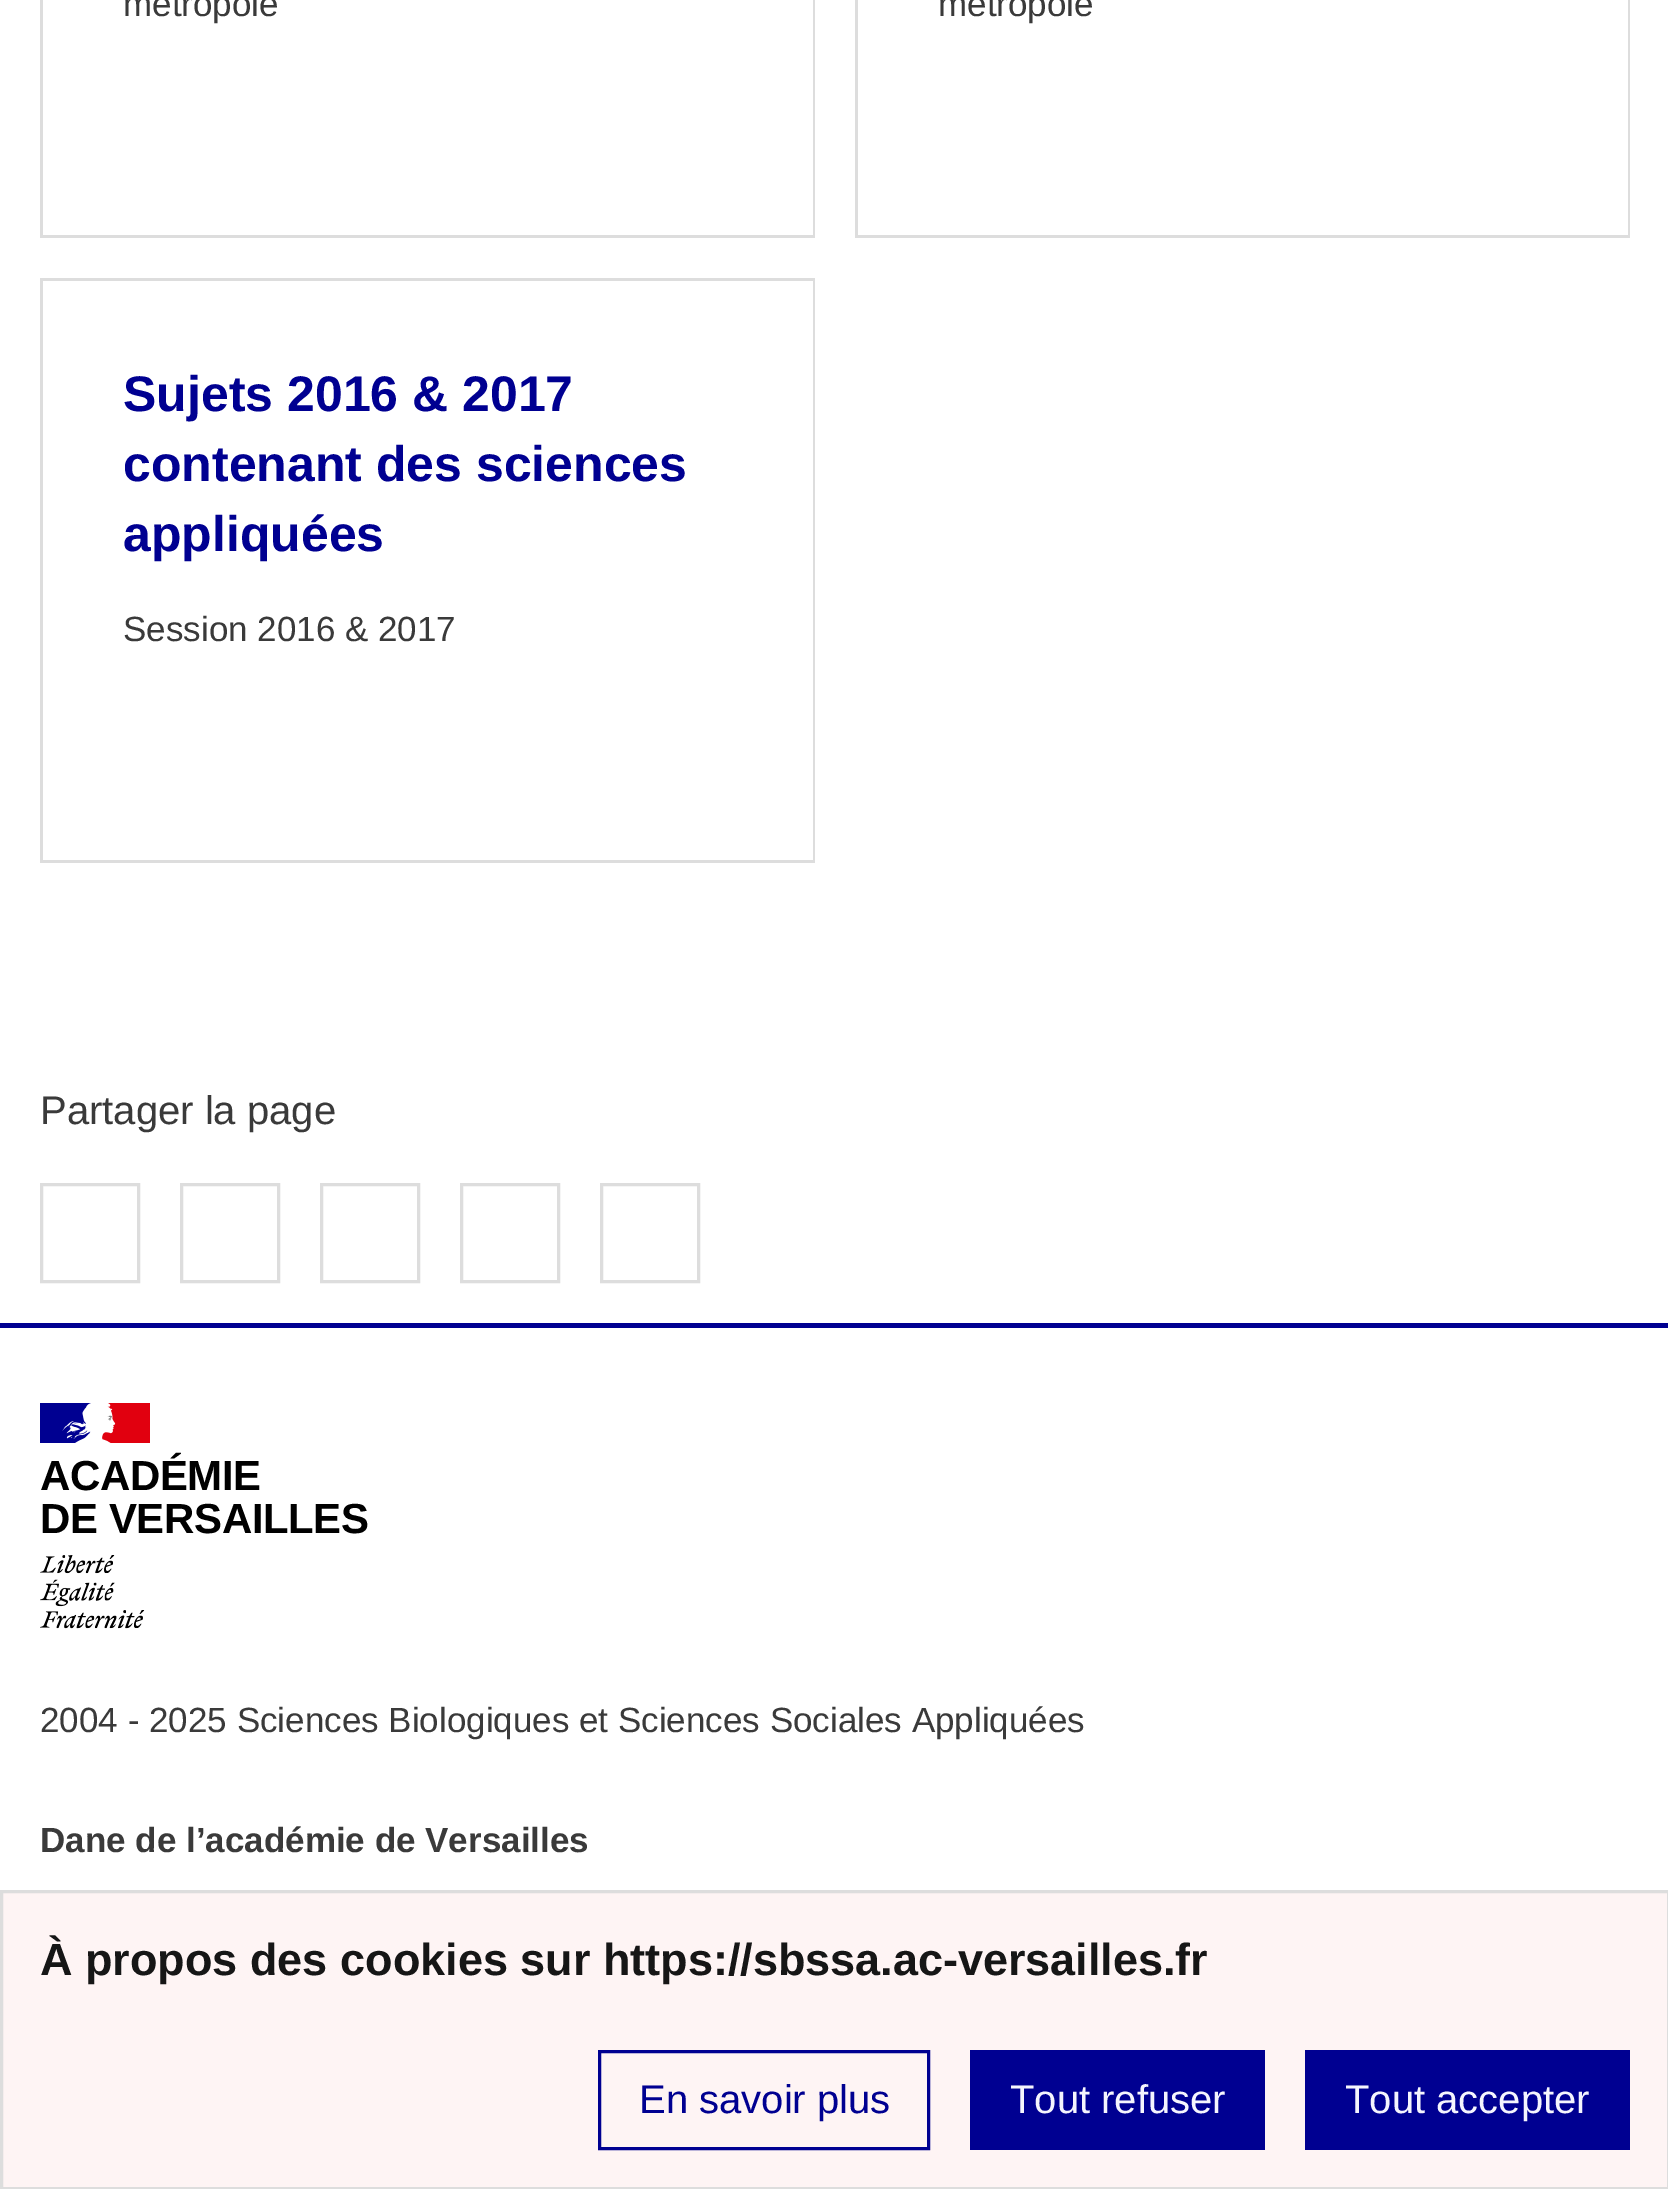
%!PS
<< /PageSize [1668 2189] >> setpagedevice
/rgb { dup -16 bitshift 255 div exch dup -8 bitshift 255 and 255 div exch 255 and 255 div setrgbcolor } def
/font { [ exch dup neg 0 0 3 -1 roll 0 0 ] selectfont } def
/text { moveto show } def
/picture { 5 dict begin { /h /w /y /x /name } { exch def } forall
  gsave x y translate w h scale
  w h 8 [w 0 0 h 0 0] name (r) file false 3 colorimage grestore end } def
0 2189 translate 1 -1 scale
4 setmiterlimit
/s1 { /LiberationSans-Regular 35 font 16#3A3A3A rgb } def
/s2 { /LiberationSans-Bold 50 font 16#000091 rgb } def
/s3 { /LiberationSans-Regular 40 font 16#3A3A3A rgb } def
/s4 { /LiberationSans-Bold 35 font 16#3A3A3A rgb } def
/s5 { /LiberationSans-Bold 45 font 16#161616 rgb } def
/s6 { /LiberationSans-Regular 40 font 16#000091 rgb } def
/s7 { /LiberationSans-Regular 40 font 16#F5F5FE rgb } def
16#FFFFFF rgb
0 0 1668 2189 rectfill
16#DDDDDD rgb
813 0 2 238 rectfill
40 0 3 238 rectfill
40 235 775 3 rectfill
s1
(métropole) 123 16 text
16#DDDDDD rgb
1628 0 2 238 rectfill
855 0 3 238 rectfill
855 235 775 3 rectfill
s1
(métropole) 938 16 text
16#DDDDDD rgb
40 278 775 3 rectfill
813 278 2 585 rectfill
40 278 3 585 rectfill
40 860 775 3 rectfill
s2
(Sujets 2016 & 2017) 123 411 text
(contenant des sciences) 123 481 text
(appliquées) 123 551 text
s1
(Session 2016 & 2017) 123 641 text
s3
(Partager la page) 40 1124 text
16#DDDDDD rgb
3 setlinewidth
41.5 1184.5 97 97 rectstroke
181.5 1184.5 97 97 rectstroke
321.5 1184.5 97 97 rectstroke
461.5 1184.5 97 97 rectstroke
601.5 1184.5 97 97 rectstroke
16#000091 rgb
0 1323 1668 5 rectfill
40 1403 51 40 rectfill
16#E1000F rgb
102 1403 48 40 rectfill
(pic1.raw) 62 1403 54 40 picture
/LiberationSans-Bold 42 font
16#000000 rgb
40 1490 moveto -0.4 0 (ACADÉMIE) ashow
40 1533 moveto -0.4 0 (DE VERSAILLES) ashow
(pic2.raw) 40 1555 105 74 picture
s1
(2004 - 2025 Sciences Biologiques et Sciences Sociales Appliquées) 40 1732 text
s4
(Dane de l’académie de Versailles) 40 1852 text
16#FEF4F4 rgb
1.5 1891.5 moveto 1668.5 1891.5 lineto 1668.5 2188.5 lineto 1.5 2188.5 lineto closepath gsave fill grestore
16#DDDDDD rgb
stroke
s5
(À propos des cookies sur https://sbssa.ac-versailles.fr) 40 1975 text
16#000091 rgb
599.5 2051.5 329 97 rectstroke
s6
(En savoir plus) 639 2113 text
970 2050 295 100 rectfill
s7
(Tout refuser) 1010 2113 text
16#000091 rgb
1305 2050 325 100 rectfill
s7
(Tout accepter) 1345 2113 text
showpage
